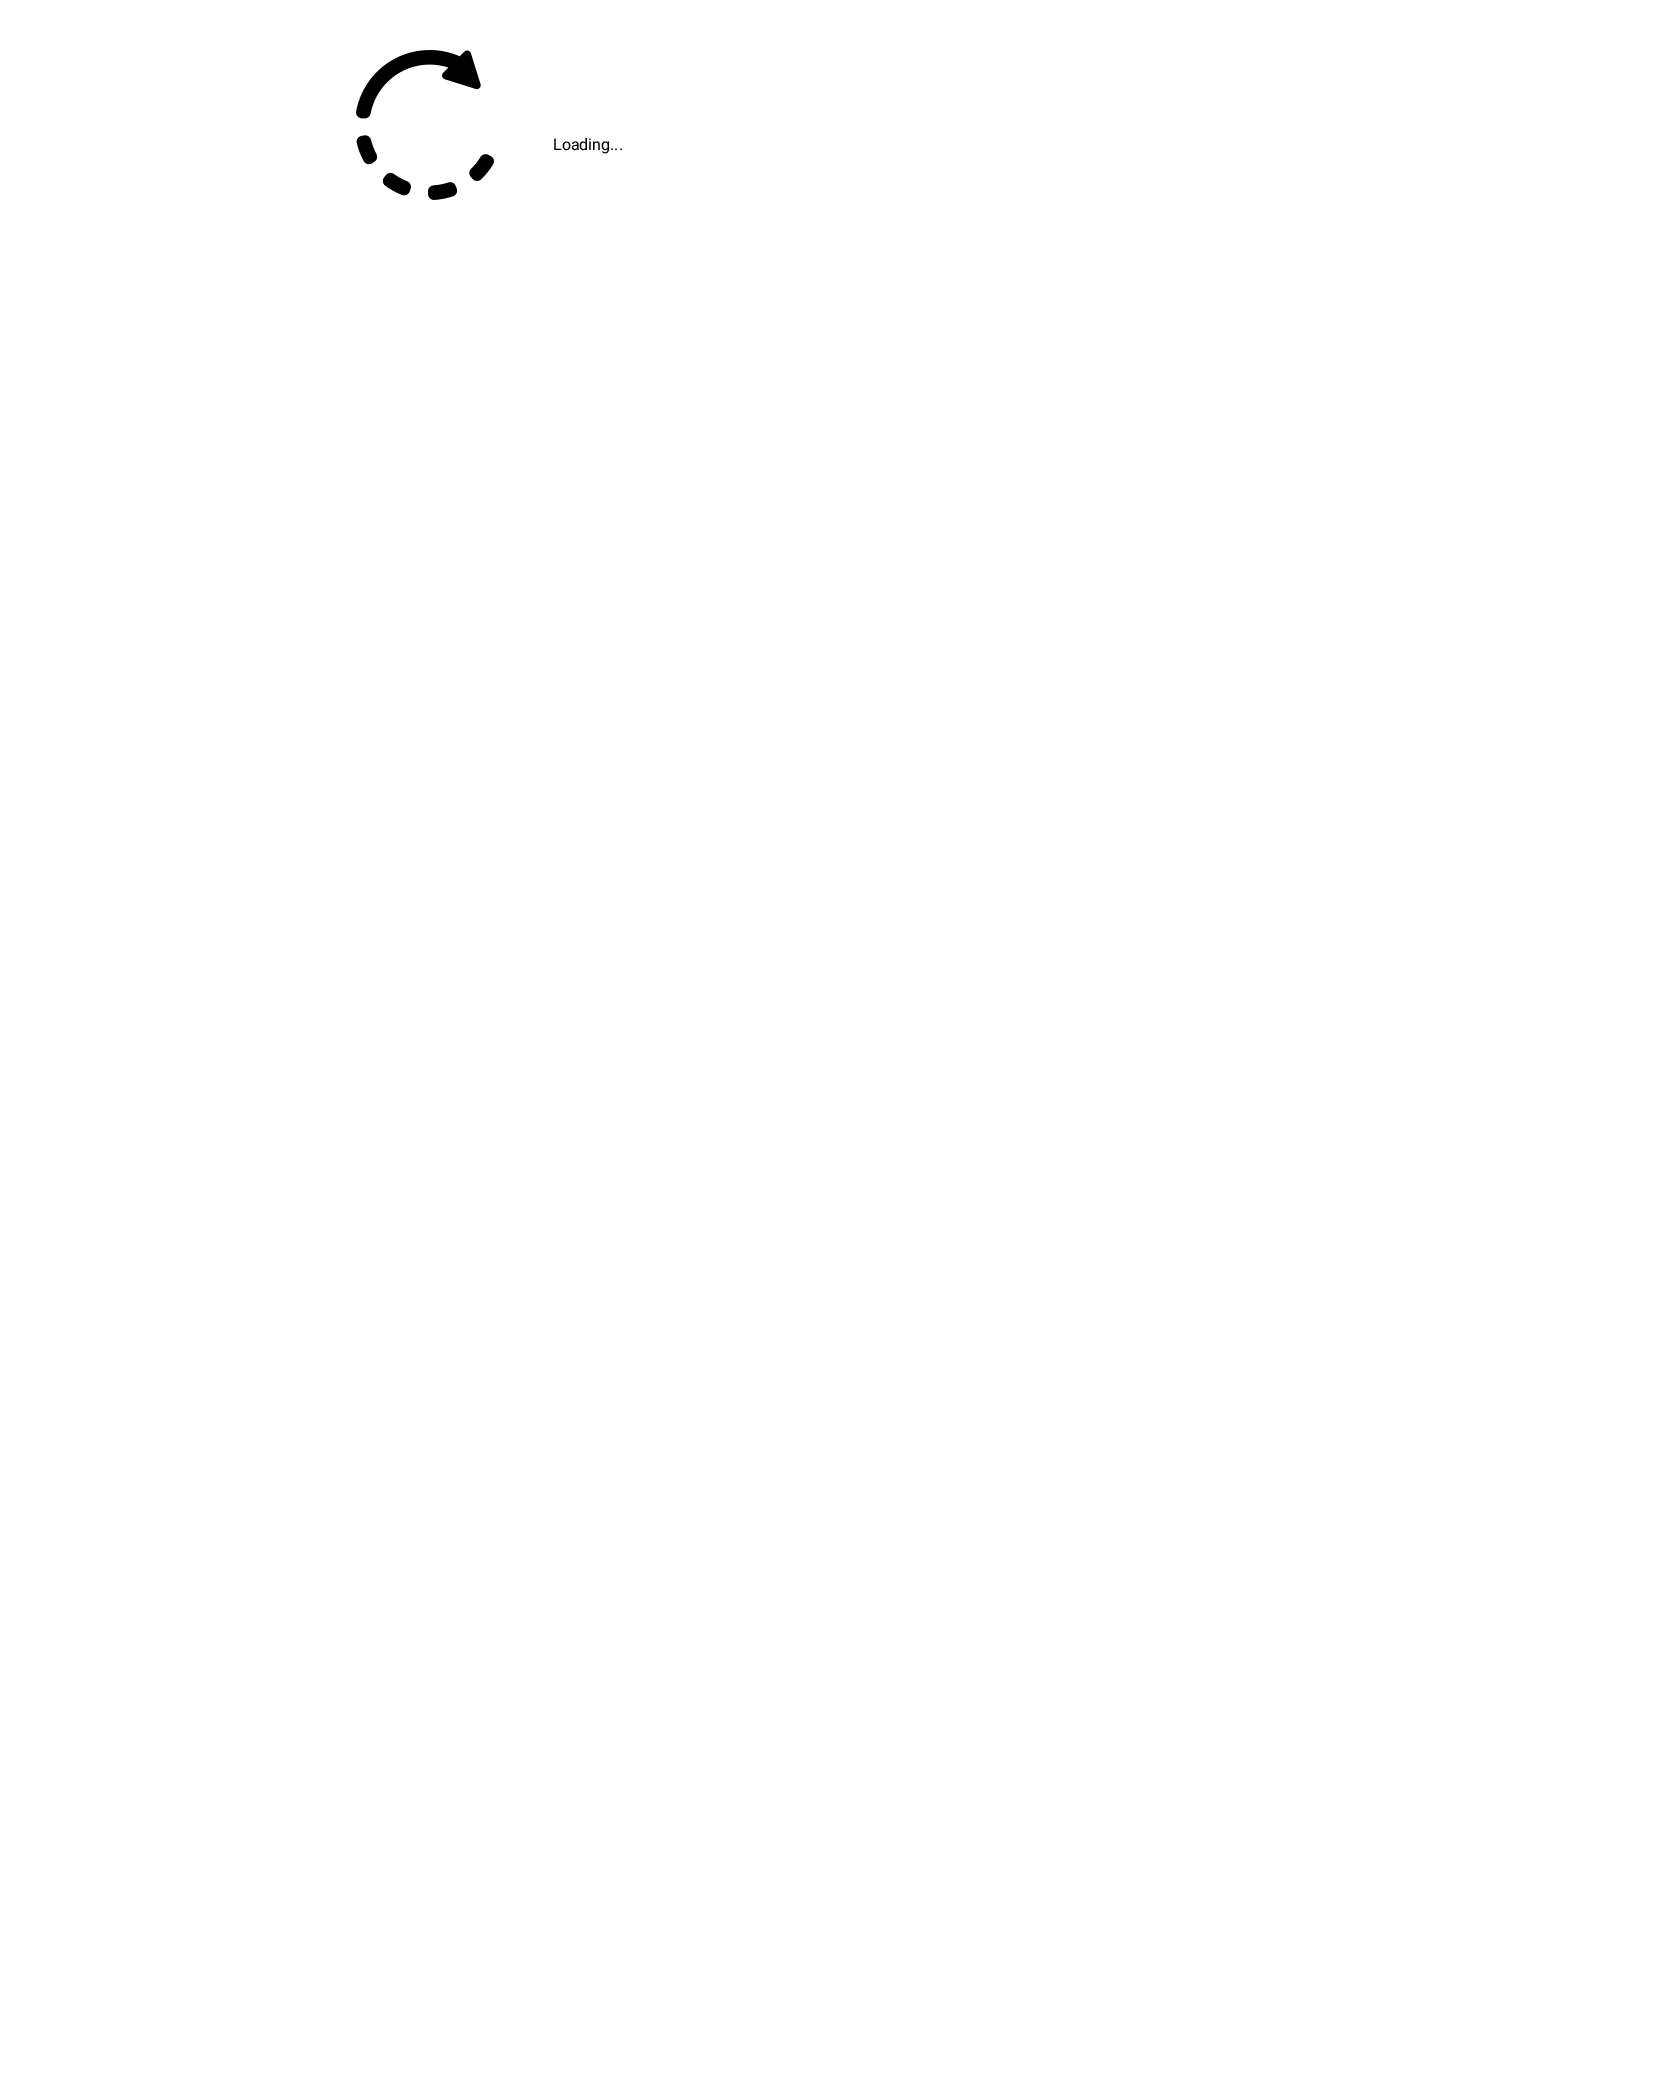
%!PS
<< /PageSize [1659 2095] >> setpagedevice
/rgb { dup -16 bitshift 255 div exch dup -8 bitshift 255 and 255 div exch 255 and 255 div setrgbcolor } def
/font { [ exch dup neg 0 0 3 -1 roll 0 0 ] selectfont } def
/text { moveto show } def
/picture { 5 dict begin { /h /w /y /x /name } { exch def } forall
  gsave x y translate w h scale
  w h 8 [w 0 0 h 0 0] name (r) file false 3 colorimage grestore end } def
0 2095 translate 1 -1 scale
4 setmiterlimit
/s1 { /Roboto-Regular 16 font 16#000000 rgb } def
16#FFFFFF rgb
0 0 1659 2095 rectfill
(pic1.raw) 356 50 138 150 picture
s1
(Loading...) 553 150 text
showpage
